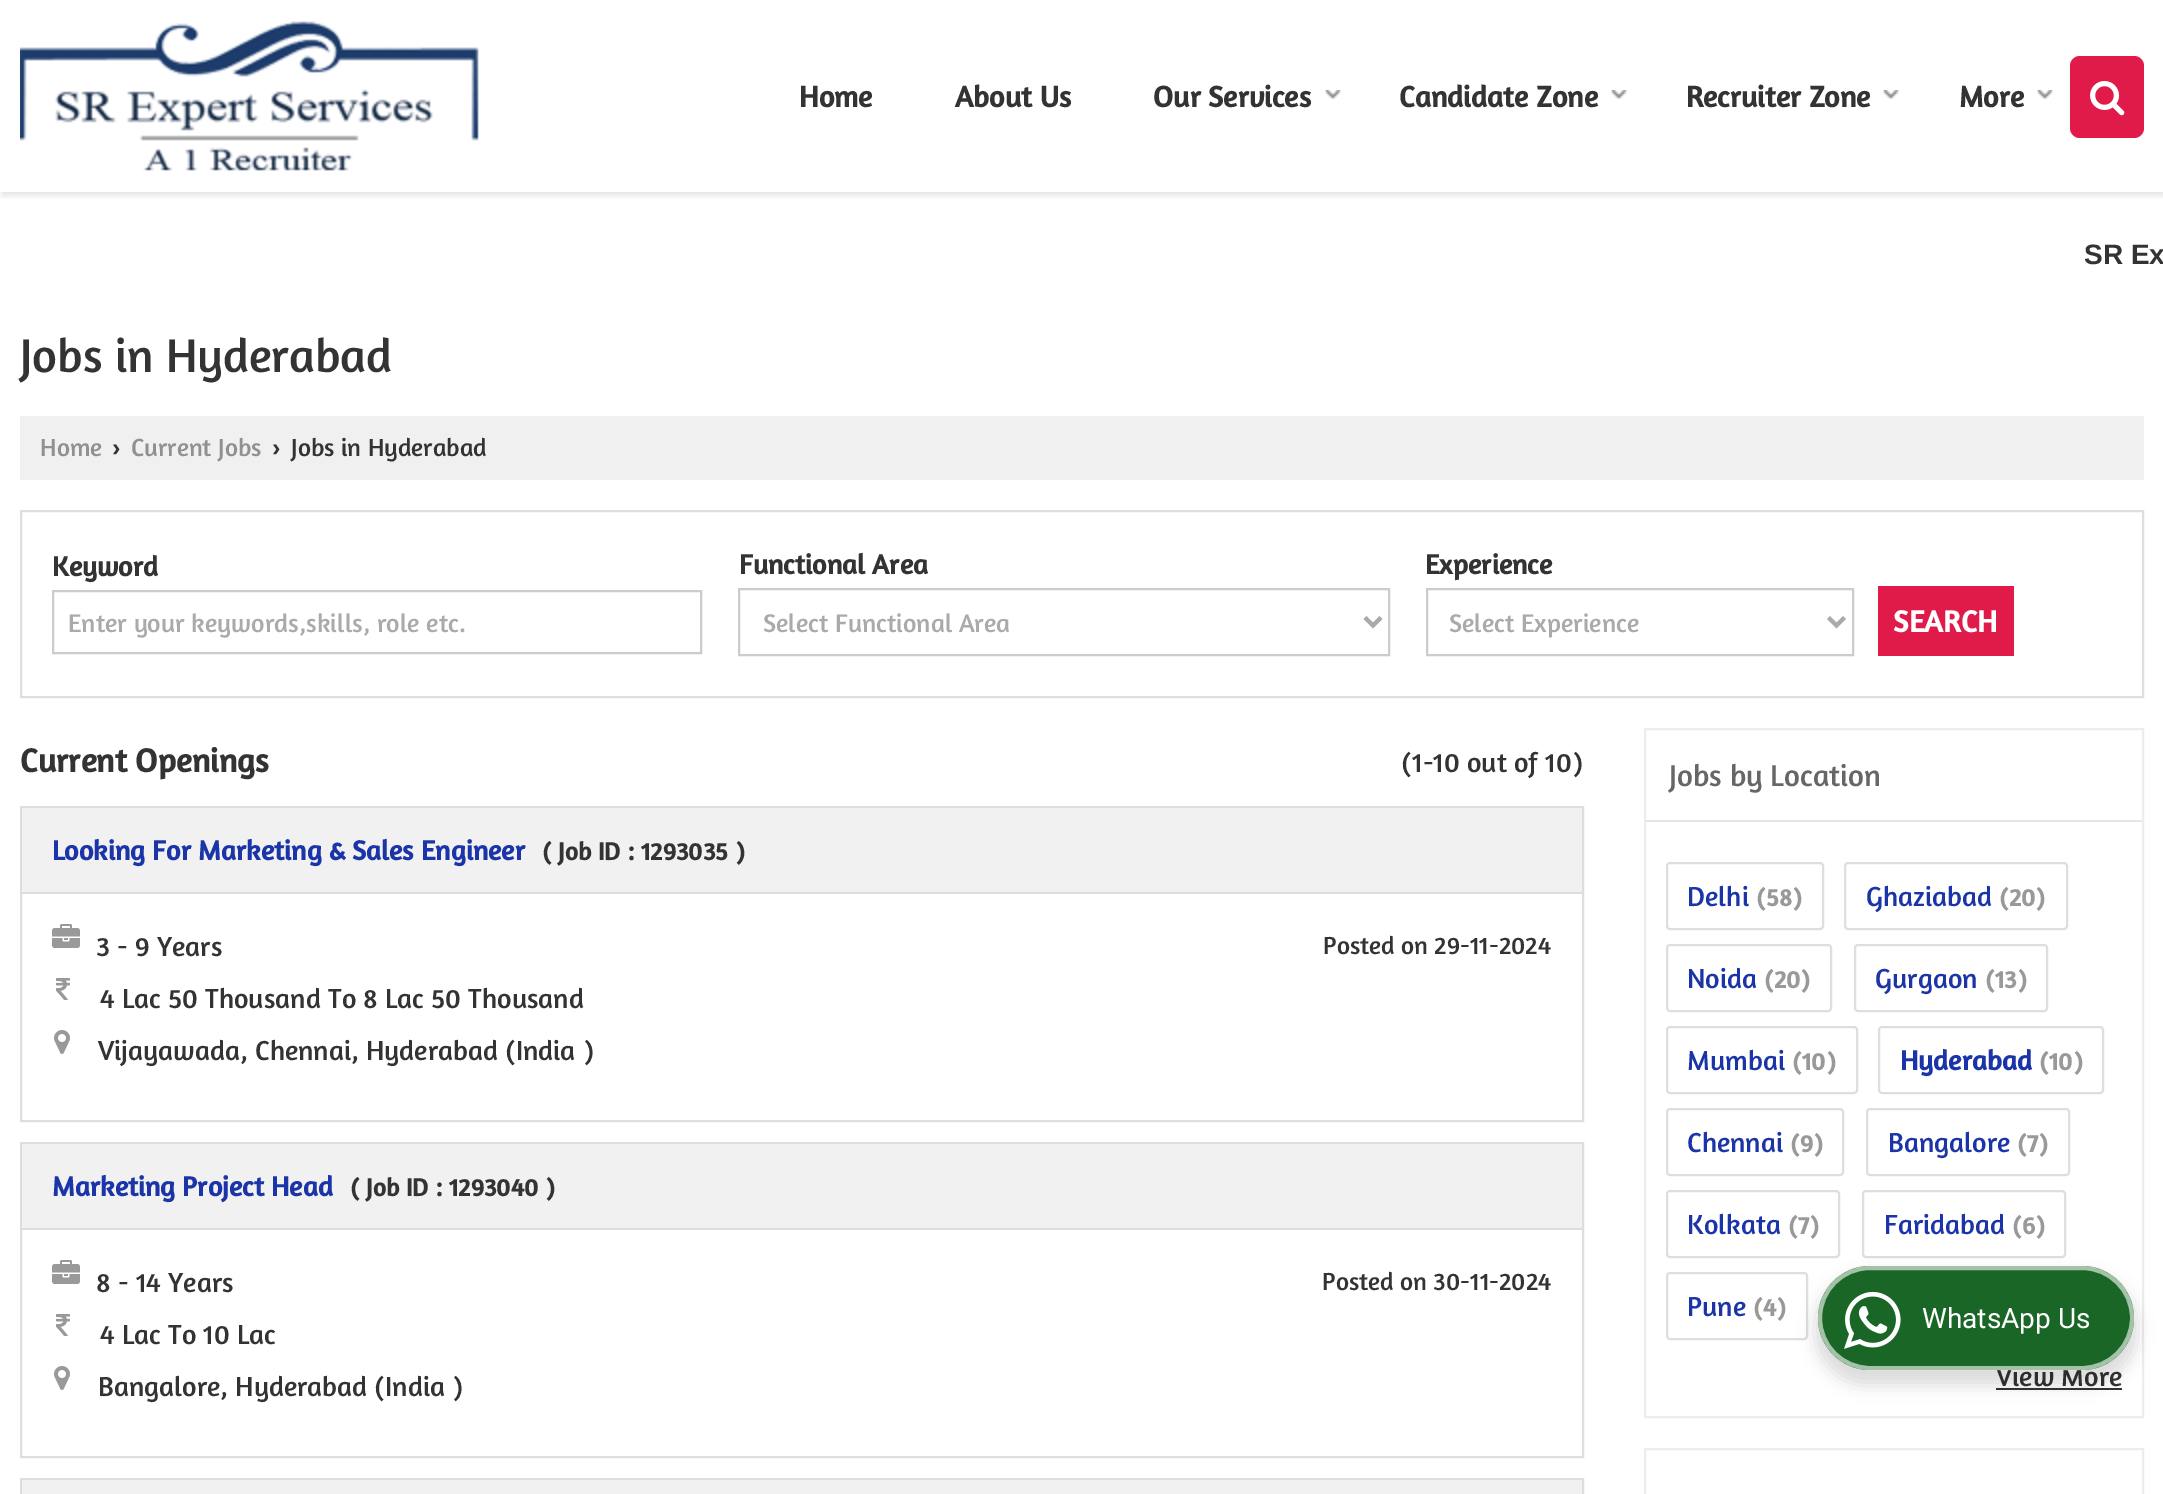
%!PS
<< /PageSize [2163 1494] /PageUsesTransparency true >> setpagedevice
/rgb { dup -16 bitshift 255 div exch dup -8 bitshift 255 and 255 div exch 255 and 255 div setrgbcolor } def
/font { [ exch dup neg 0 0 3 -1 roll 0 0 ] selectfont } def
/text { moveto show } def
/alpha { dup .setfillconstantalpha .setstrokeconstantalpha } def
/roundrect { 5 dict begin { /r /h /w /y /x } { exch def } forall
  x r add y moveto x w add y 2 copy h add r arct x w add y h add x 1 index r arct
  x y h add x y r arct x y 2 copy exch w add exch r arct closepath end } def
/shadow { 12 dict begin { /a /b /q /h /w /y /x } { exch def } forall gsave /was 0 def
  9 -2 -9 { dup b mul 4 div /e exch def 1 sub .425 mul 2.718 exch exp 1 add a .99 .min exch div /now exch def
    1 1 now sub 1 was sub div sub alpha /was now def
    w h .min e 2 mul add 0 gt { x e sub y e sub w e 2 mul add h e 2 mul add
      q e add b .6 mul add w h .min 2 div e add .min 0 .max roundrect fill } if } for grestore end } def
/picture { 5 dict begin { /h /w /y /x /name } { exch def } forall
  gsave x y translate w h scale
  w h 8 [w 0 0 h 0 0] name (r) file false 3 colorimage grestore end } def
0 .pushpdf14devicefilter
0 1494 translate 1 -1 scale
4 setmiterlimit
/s1 { /Amaranth-Bold 30 font 16#333333 rgb } def
/s2 { /LiberationSans-Bold 28 font 16#333333 rgb } def
/s3 { /Amaranth-Regular 48 font 16#333333 rgb } def
/s4 { /Amaranth-Regular 25.25 font 16#909090 rgb } def
/s5 { /LiberationSans-Bold 25.25 font 16#333333 rgb } def
/s6 { /Amaranth-Regular 25.25 font 16#333333 rgb } def
/s7 { /Amaranth-Bold 28 font 16#333333 rgb } def
/s8 { /Amaranth-Regular 26 font 16#AAAAAA rgb } def
/s9 { /Amaranth-Bold 30.75 font 16#FFFFFF rgb } def
/s10 { /Amaranth-Bold 33.5 font 16#333333 rgb } def
/s11 { /Amaranth-Regular 28 font 16#333333 rgb } def
/s12 { /Amaranth-Bold 28 font 16#1B35A8 rgb } def
/s13 { /Amaranth-Bold 25.25 font 16#333333 rgb } def
/s14 { /Amaranth-Regular 30.75 font 16#666666 rgb } def
/s15 { /Amaranth-Regular 28 font 16#1B35A8 rgb } def
/s16 { /Amaranth-Bold 25.25 font 16#999999 rgb } def
/s17 { /Roboto-Regular 28 font 16#FFFFFF rgb } def
16#FFFFFF rgb
0 0 2163 1494 rectfill
gsave
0 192 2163 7 rectclip
16#000000 rgb
2 4 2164 192 0 3 0.1 shadow
grestore
(pic1.raw) 20 21 459 150 picture
s1
(Home) 799 107 text
(About Us) 955 107 text
(Our Services) 1153 107 text
(pic2.raw) 1325 90 16 10 picture
(Candidate Zone) 1399 107 text
(pic2.raw) 1611 90 16 10 picture
(Recruiter Zone) 1686 107 text
(pic2.raw) 1883 90 16 10 picture
(More) 1959 107 text
(pic2.raw) 2037 90 16 10 picture
16#E01B49 rgb
2070 56 74 82 10 roundrect fill
(pic3.raw) 2090 81 35 35 picture
s2
(SR Ex) 2084 264 text
s3
(Jobs in Hyderabad) 20 372 text
16#F0F0F0 rgb
20 416 2124 64 rectfill
s4
(Home) 40 456 text
s5
(›) 112 456 text
s4
(Current Jobs) 131 456 text
s5
(›) 272 456 text
s6
(Jobs in Hyderabad) 291 456 text
16#DEDEDE rgb
2 setlinewidth
21 511 2122 186 rectstroke
s7
(Keyword) 52 576 text
16#CCCCCC rgb
53 591 648 62 rectstroke
s8
(Enter your keywords,skills, role etc.) 68 632 text
s7
(Functional Area) 739 574 text
16#CCCCCC rgb
739 589 650 66 rectstroke
16#AAAAAA rgb
4 setlinewidth
1365 617.5 moveto 1373 625.5 lineto 1381 617.5 lineto stroke
s8
(Select Functional Area) 763 632 text
s7
(Experience) 1425 574 text
16#CCCCCC rgb
2 setlinewidth
1427 589 426 66 rectstroke
16#AAAAAA rgb
4 setlinewidth
1828.5 617.5 moveto 1836.5 625.5 lineto 1844.5 617.5 lineto stroke
s8
(Select Experience) 1449 632 text
16#E01B49 rgb
1878 586 136 70 rectfill
s9
(SEARCH) 1893 632 text
s10
(Current Openings) 20 772 text
s11
(\(1-10 out of 10\)) 1401 772 text
16#DEDEDE rgb
2 setlinewidth
21 807 1562 314 rectstroke
16#F1F1F1 rgb
22 808 1560 84 rectfill
s12
(Looking For Marketing & Sales Engineer) 52 860 text
s13
(\( Job ID : 1293035 \)) 542 860 text
16#DEDEDE rgb
22 892 1560 2 rectfill
(pic4.raw) 52 924 28 24 picture
s11
(3 - 9 Years) 96 956 text
s6
(Posted on 29-11-2024) 1323 954 text
(pic5.raw) 56 978 14 22 picture
s11
(4 Lac 50 Thousand To 8 Lac 50 Thousand) 100 1008 text
(pic6.raw) 54 1030 16 24 picture
(Vijayawada, Chennai, Hyderabad \(India \)) 98 1060 text
16#DEDEDE rgb
21 1143 1562 314 rectstroke
16#F1F1F1 rgb
22 1144 1560 84 rectfill
s12
(Marketing Project Head) 52 1196 text
s13
(\( Job ID : 1293040 \)) 350 1196 text
16#DEDEDE rgb
22 1228 1560 2 rectfill
(pic4.raw) 52 1260 28 24 picture
s11
(8 - 14 Years) 96 1292 text
s6
(Posted on 30-11-2024) 1322 1290 text
(pic5.raw) 56 1314 14 22 picture
s11
(4 Lac To 10 Lac) 100 1344 text
(pic6.raw) 54 1366 16 24 picture
(Bangalore, Hyderabad \(India \)) 98 1396 text
16#DEDEDE rgb
21 1479 1562 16 rectstroke
16#F1F1F1 rgb
22 1480 1560 14 rectfill
16#EDEDED rgb
1645 729 498 688 rectstroke
16#E6E6E6 rgb
1646 820 496 2 rectfill
s14
(Jobs by Location) 1669 786 text
16#DEDEDE rgb
1667 863 156 66 3 roundrect stroke
s15
(Delhi) 1687 906 text
s16
(\(58\)) 1756 906 text
16#DEDEDE rgb
1845 863 222 66 3 roundrect stroke
s15
(Ghaziabad) 1866 906 text
s16
(\(20\)) 1999 906 text
16#DEDEDE rgb
1667 945 164 66 3 roundrect stroke
s15
(Noida) 1687 988 text
s16
(\(20\)) 1764 988 text
16#DEDEDE rgb
1855 945 192 66 3 roundrect stroke
s15
(Gurgaon) 1875 988 text
s16
(\(13\)) 1985 988 text
16#DEDEDE rgb
1667 1027 190 66 3 roundrect stroke
s15
(Mumbai) 1687 1070 text
s16
(\(10\)) 1792 1070 text
16#DEDEDE rgb
1879 1027 224 66 3 roundrect stroke
s12
(Hyderabad) 1900 1070 text
s16
(\(10\)) 2039 1070 text
16#DEDEDE rgb
1667 1109 176 66 3 roundrect stroke
s15
(Chennai) 1687 1152 text
s16
(\(9\)) 1790 1152 text
16#DEDEDE rgb
1867 1109 202 66 3 roundrect stroke
s15
(Bangalore) 1888 1152 text
s16
(\(7\)) 2017 1152 text
16#DEDEDE rgb
1667 1191 172 66 3 roundrect stroke
s15
(Kolkata) 1687 1234 text
s16
(\(7\)) 1788 1234 text
16#DEDEDE rgb
1863 1191 202 66 3 roundrect stroke
s15
(Faridabad) 1884 1234 text
s16
(\(6\)) 2012 1234 text
16#DEDEDE rgb
1667 1273 140 66 3 roundrect stroke
s15
(Pune) 1687 1316 text
s16
(\(4\)) 1753 1316 text
s11
(View More) 1996 1386 text
1996 1388 126 2 rectfill
16#EDEDED rgb
1645 1449 498 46 rectstroke
16#000000 rgb
1814 1274 324 112 56 8 0.14 shadow
16#196626 rgb
1818 1266 316 104 52 roundrect fill
0.6 alpha
16#FFFFFF rgb
4 setlinewidth
1820 1268 312 100 50 roundrect stroke
1 alpha
(pic7.raw) 1844 1291 57 58 picture
s17
(WhatsApp Us) 1922 1328 text
.poppdf14devicefilter showpage
